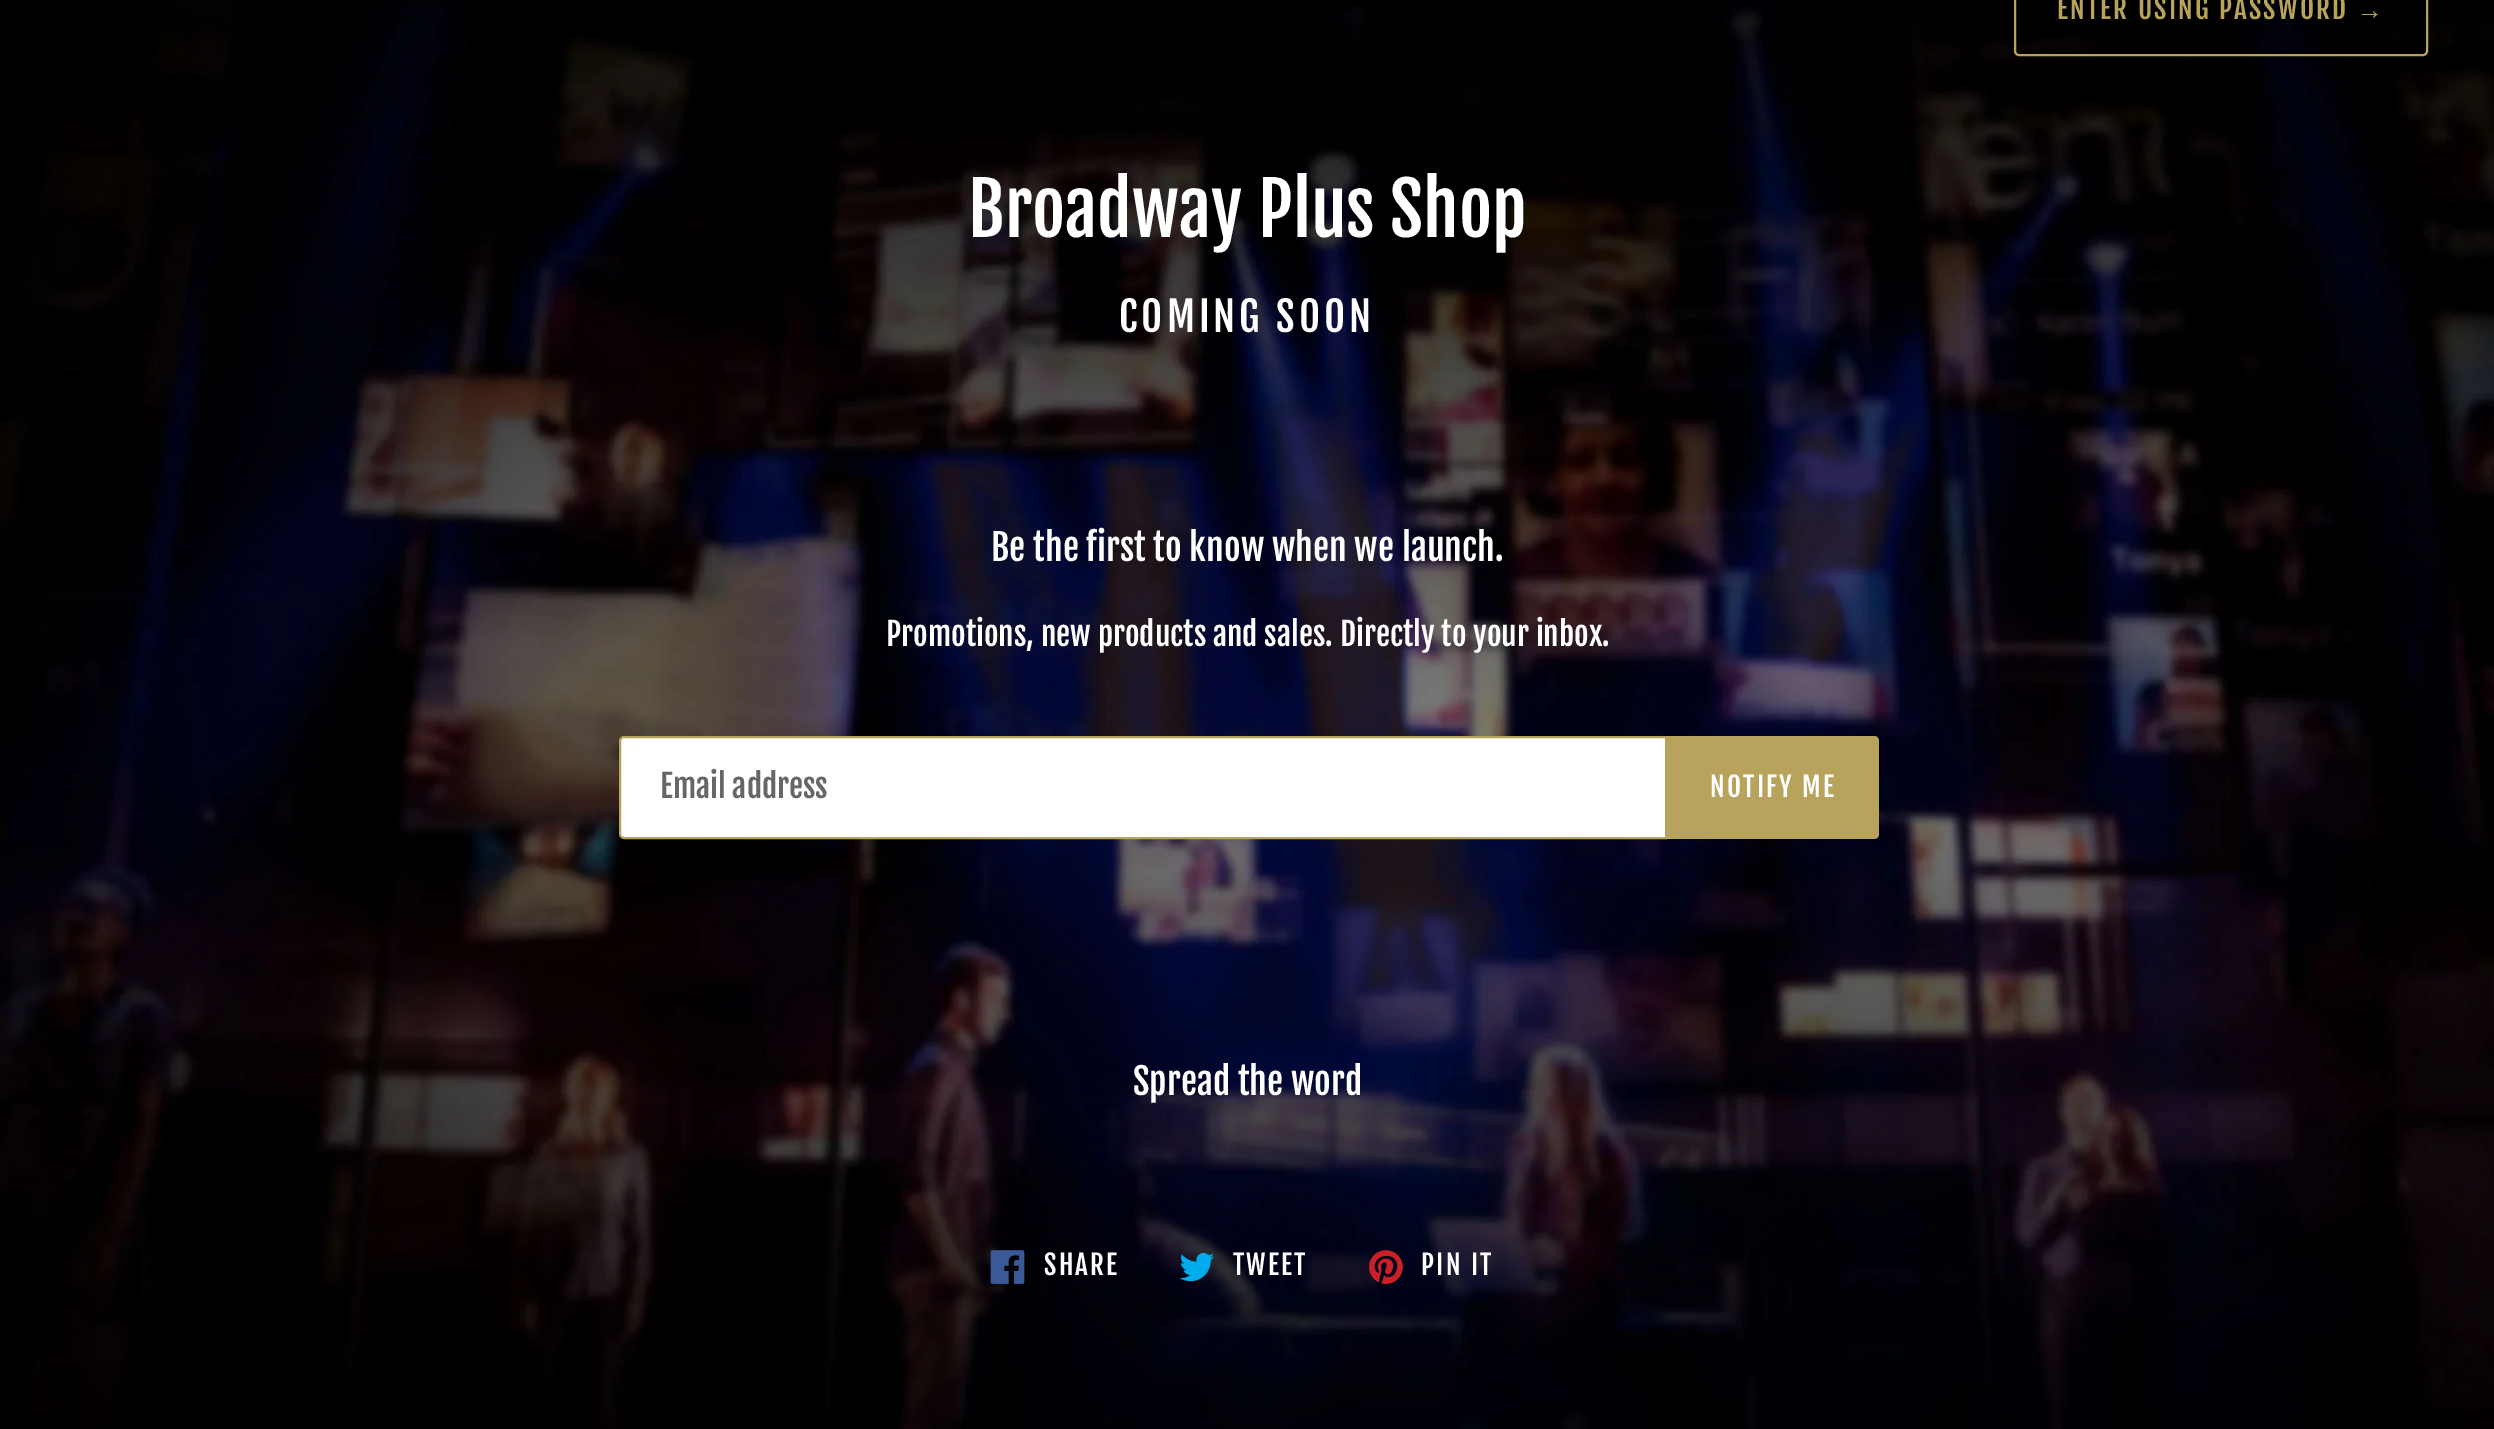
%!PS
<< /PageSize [2494 1429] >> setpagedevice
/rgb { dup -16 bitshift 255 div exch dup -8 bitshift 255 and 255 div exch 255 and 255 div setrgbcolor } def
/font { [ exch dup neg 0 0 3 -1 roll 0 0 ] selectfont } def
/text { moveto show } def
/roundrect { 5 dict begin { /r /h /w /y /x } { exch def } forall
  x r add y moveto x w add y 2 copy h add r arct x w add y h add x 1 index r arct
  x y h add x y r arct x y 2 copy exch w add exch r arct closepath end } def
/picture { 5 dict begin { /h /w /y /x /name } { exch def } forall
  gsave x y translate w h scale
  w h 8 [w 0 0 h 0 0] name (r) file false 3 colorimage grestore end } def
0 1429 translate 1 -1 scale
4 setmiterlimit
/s1 { /FjallaOne-Regular 72 font 16#FFFFFF rgb } def
/s2 { /FjallaOne-Regular 36 font 16#FFFFFF rgb } def
/s3 { /FjallaOne-Regular 31.5 font 16#FFFFFF rgb } def
/s4 { /FjallaOne-Regular 31.5 font 16#666666 rgb } def
16#FFFFFF rgb
0 0 2494 1429 rectfill
(pic1.raw) 0 0 2494 1429 picture
16#B8A35D rgb
2 setlinewidth
2015 -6 412 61 4 roundrect stroke
/FjallaOne-Regular 27 font
2057 19 moveto 2.2 0 (ENTER USING PASSWORD) ashow
/LiberationSans-Regular 27 font
2356 19 moveto 2.2 0 (→) ashow
s1
(Broadway Plus Shop) 968 237 text
/FjallaOne-Regular 40.5 font
1119 332 moveto 4 0 (COMING SOON) ashow
s2
(Be the first to know when we launch.) 991 561 text
s3
(Promotions, new products and sales. Directly to your inbox.) 886 646 text
624 737 moveto 1666 737 lineto 1666 838 lineto 624 838 lineto 622 838 620 836 620 834 curveto 620 741 lineto 620 739 622 737 624 737 curveto closepath gsave fill grestore
16#B8A35D rgb
stroke
s4
(Email address) 660 798 text
16#B8A35D rgb
1667 736 moveto 1874 736 lineto 1877 736 1879 738 1879 741 curveto 1879 834 lineto 1879 837 1877 839 1874 839 curveto 1667 839 lineto closepath fill
/FjallaOne-Regular 27 font
16#FFFFFF rgb
1710 797 moveto 2.2 0 (NOTIFY ME) ashow
s2
(Spread the word) 1133 1095 text
(pic2.raw) 990 1250 35 34 picture
/FjallaOne-Regular 27 font
1044 1275 moveto 2.2 0 (SHARE) ashow
(pic3.raw) 1179 1253 35 29 picture
1233 1275 moveto 2.2 0 (TWEET) ashow
(pic4.raw) 1369 1250 34 34 picture
1421 1275 moveto 2.2 0 (PIN IT) ashow
showpage
